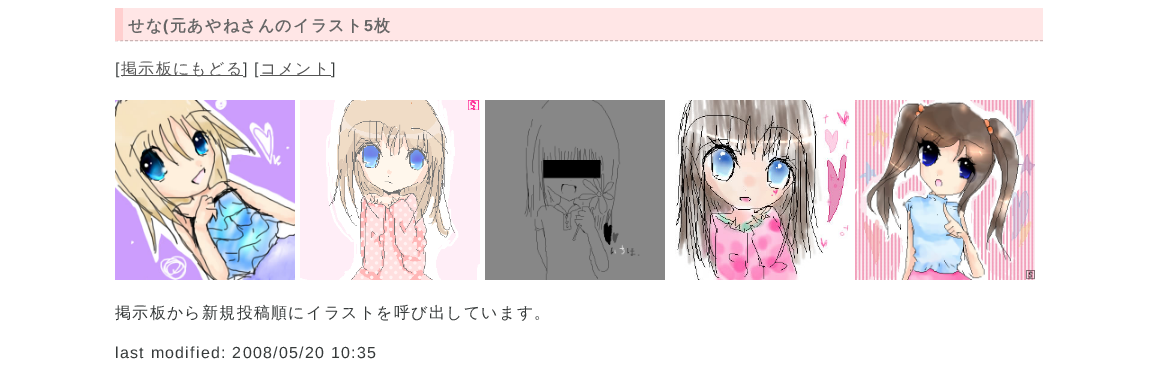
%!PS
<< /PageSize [1158 374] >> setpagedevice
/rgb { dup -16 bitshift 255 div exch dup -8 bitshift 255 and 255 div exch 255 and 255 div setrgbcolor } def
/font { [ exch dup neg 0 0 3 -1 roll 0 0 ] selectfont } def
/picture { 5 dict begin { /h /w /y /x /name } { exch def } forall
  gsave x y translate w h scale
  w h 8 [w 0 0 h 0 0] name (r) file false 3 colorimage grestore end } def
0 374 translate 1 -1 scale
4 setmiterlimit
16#FFFFFF rgb
0 0 1158 374 rectfill
16#FFE6E6 rgb
118 8 925 33 rectfill
16#CAB3B3 rgb
[3 2] 0 setdash
115 40.5 moveto 1043 40.5 lineto stroke
16#FFCFCF rgb
115 41 moveto 115 8 lineto 123 8 lineto 123 40 lineto closepath fill
/WenQuanYiZenHei-Bold 16 font
16#666666 rgb
128 31 moveto 1.25 0 (せな) ashow
/LiberationSans-Bold 16 font
163 31 moveto 1.25 0 (\() ashow
/WenQuanYiZenHei-Bold 16 font
170 31 moveto 1.25 0 (元あやねさんのイラスト) ashow
/LiberationSans-Bold 16 font
364 31 moveto 1.25 0 (5) ashow
/WenQuanYiZenHei-Bold 16 font
374 31 moveto 1.25 0 (枚) ashow
/LiberationSans-Regular 16 font
16#363A3A rgb
115 74 moveto 1.25 0 ([) ashow
16#555555 rgb
121 75 122 1 rectfill
/WenQuanYiZenHei-Medium 16 font
121 74 moveto 1.25 0 (掲示板にもどる) ashow
/LiberationSans-Regular 16 font
16#363A3A rgb
243 74 moveto 1.25 0 (] [) ashow
16#555555 rgb
260 75 71 1 rectfill
/WenQuanYiZenHei-Medium 16 font
260 74 moveto 1.25 0 (コメント) ashow
/LiberationSans-Regular 16 font
16#363A3A rgb
331 74 moveto 1.25 0 (]) ashow
(pic1.raw) 115 100 180 180 picture
(pic2.raw) 300 100 180 180 picture
(pic3.raw) 485 100 180 180 picture
(pic4.raw) 675 100 175 180 picture
(pic5.raw) 855 100 180 180 picture
/WenQuanYiZenHei-Medium 16 font
115 318 moveto 1.25 0 (掲示板から新規投稿順にイラストを呼び出しています。) ashow
/LiberationSans-Regular 16 font
115 358 moveto 1.25 0 (last modified: 2008/05/20 10:35) ashow
showpage
